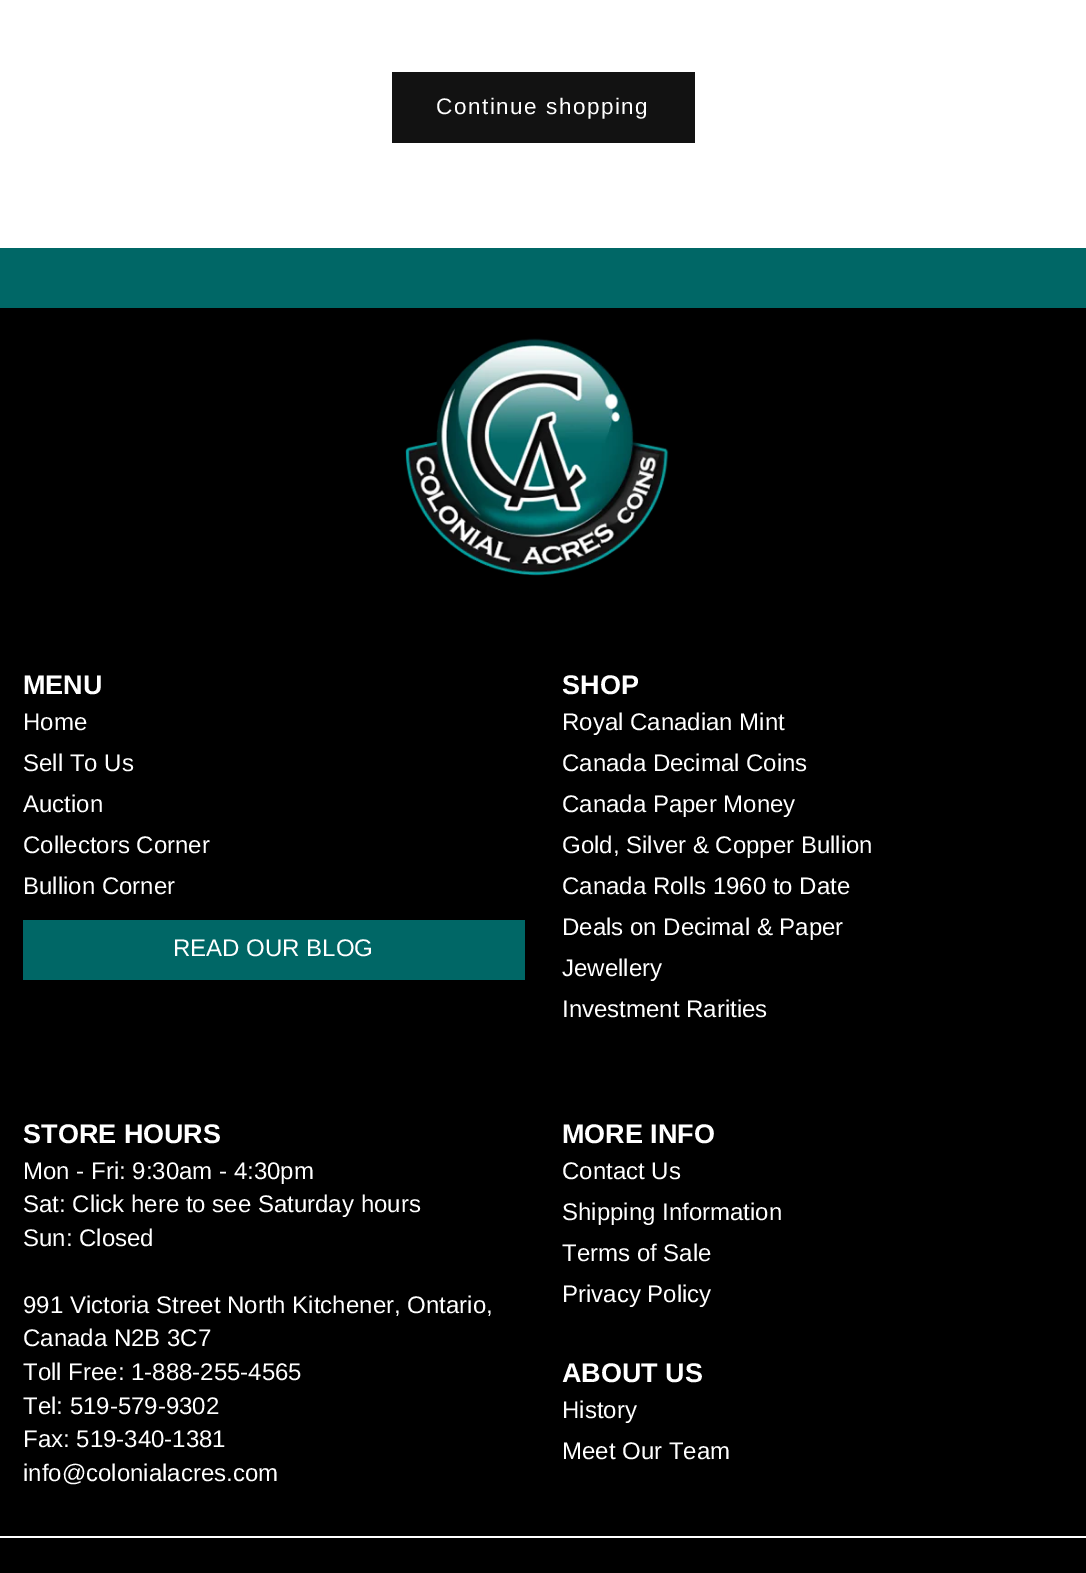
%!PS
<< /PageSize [1086 1573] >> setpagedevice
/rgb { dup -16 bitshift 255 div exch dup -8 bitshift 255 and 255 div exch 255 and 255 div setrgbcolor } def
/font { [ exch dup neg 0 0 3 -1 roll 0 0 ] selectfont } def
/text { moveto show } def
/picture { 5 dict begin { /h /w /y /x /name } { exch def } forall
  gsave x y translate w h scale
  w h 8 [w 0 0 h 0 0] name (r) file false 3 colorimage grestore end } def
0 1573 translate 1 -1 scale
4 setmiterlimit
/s1 { /LiberationSans-Bold 27 font 16#FFFFFF rgb } def
/s2 { /LiberationSans-Regular 24 font 16#FFFFFF rgb } def
16#FFFFFF rgb
0 0 1086 1573 rectfill
16#121212 rgb
392 72 303 71 rectfill
/LiberationSans-Regular 22.5 font
16#FFFFFF rgb
436 114 moveto 1.5 0 (Continue shopping) ashow
16#000000 rgb
0 308 1086 1265 rectfill
16#006766 rgb
0 248 1086 60 rectfill
(pic1.raw) 405 338 264 238 picture
s1
(MENU) 23 694 text
s2
(Home) 23 730 text
(Sell To Us) 23 771 text
(Auction) 23 812 text
(Collectors Corner) 23 853 text
(Bullion Corner) 23 894 text
16#006766 rgb
23 920 502 60 rectfill
s2
(READ OUR BLOG) 173 956 text
s1
(SHOP) 562 694 text
s2
(Royal Canadian Mint) 562 730 text
(Canada Decimal Coins) 562 771 text
(Canada Paper Money) 562 812 text
(Gold, Silver & Copper Bullion) 562 853 text
(Canada Rolls 1960 to Date) 562 894 text
(Deals on Decimal & Paper) 562 935 text
(Jewellery) 562 976 text
(Investment Rarities) 562 1017 text
s1
(STORE HOURS) 23 1143 text
s2
(Mon - Fri: 9:30am - 4:30pm) 23 1179 text
(Sat: Click here to see Saturday hours) 23 1212 text
(Sun: Closed) 23 1246 text
(991 Victoria Street North Kitchener, Ontario,) 23 1313 text
(Canada N2B 3C7) 23 1346 text
(Toll Free: 1-888-255-4565) 23 1380 text
(Tel: 519-579-9302) 23 1414 text
(Fax: 519-340-1381) 23 1447 text
(info@colonialacres.com) 23 1481 text
s1
(MORE INFO) 562 1143 text
s2
(Contact Us) 562 1179 text
(Shipping Information) 562 1220 text
(Terms of Sale) 562 1261 text
(Privacy Policy) 562 1302 text
s1
(ABOUT US) 562 1382 text
s2
(History) 562 1418 text
(Meet Our Team) 562 1459 text
0 1536 1086 2 rectfill
showpage
